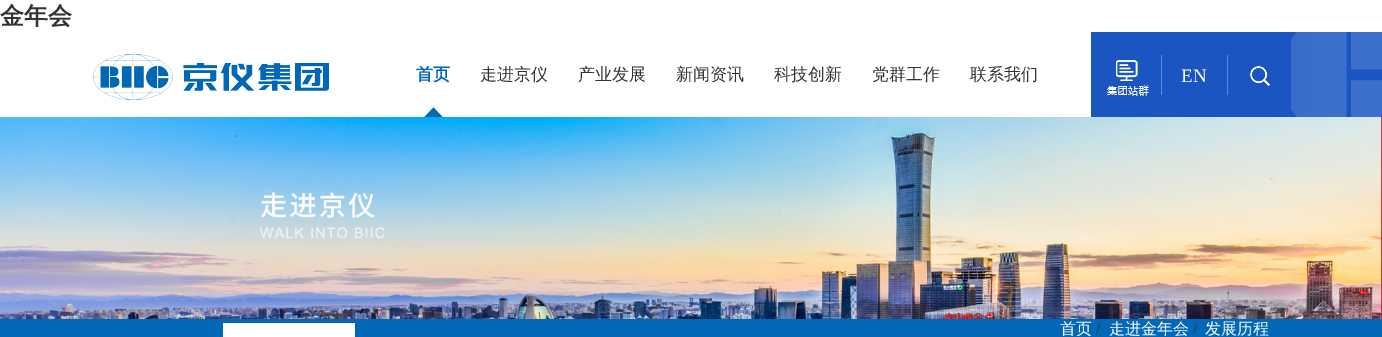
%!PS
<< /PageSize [1382 337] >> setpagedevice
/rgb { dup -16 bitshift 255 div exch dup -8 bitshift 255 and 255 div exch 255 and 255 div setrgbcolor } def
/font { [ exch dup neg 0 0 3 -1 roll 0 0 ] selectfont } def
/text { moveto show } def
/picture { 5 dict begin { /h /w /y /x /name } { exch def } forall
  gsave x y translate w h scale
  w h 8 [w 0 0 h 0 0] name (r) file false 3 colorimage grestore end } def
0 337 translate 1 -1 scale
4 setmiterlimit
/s1 { /WenQuanYiZenHei-Bold 24 font 16#333333 rgb } def
/s2 { /WenQuanYiZenHei-Bold 17 font 16#0068B7 rgb } def
/s3 { /WenQuanYiZenHei-Medium 17 font 16#333333 rgb } def
/s4 { /LiberationSerif-Regular 19 font 16#FFFFFF rgb } def
/s5 { /WenQuanYiZenHei-Medium 16 font 16#FFFFFF rgb } def
/s6 { /LiberationSerif-Regular 16 font 16#333333 rgb } def
16#FFFFFF rgb
0 0 1382 337 rectfill
s1
(金年会) 0 24 text
(pic1.raw) 1291 32 91 85 picture
(pic2.raw) 93 54 236 46 picture
(pic3.raw) 424 107 19 10 picture
s2
(首页) 416 80 text
s3
(走进京仪) 480 80 text
(产业发展) 578 80 text
(新闻资讯) 676 80 text
(科技创新) 774 80 text
(党群工作) 872 80 text
(联系我们) 970 80 text
16#1A55C2 rgb
1091 32 200 85 rectfill
(pic4.raw) 1107 60 42 36 picture
16#5F88D4 rgb
1161 55 1 40 rectfill
s4
(EN) 1181 82 text
16#5F88D4 rgb
1227 55 1 40 rectfill
(pic5.raw) 1250 66 20 20 picture
(pic6.raw) 0 117 1382 202 picture
16#0068B7 rgb
0 319 1382 18 rectfill
16#FFFFFF rgb
223 323 132 14 rectfill
s5
(首页) 1060 334 text
s6
(/) 1096 334 text
s5
(走进金年会) 1109 334 text
s6
(/) 1193 334 text
s5
(发展历程) 1205 334 text
showpage
